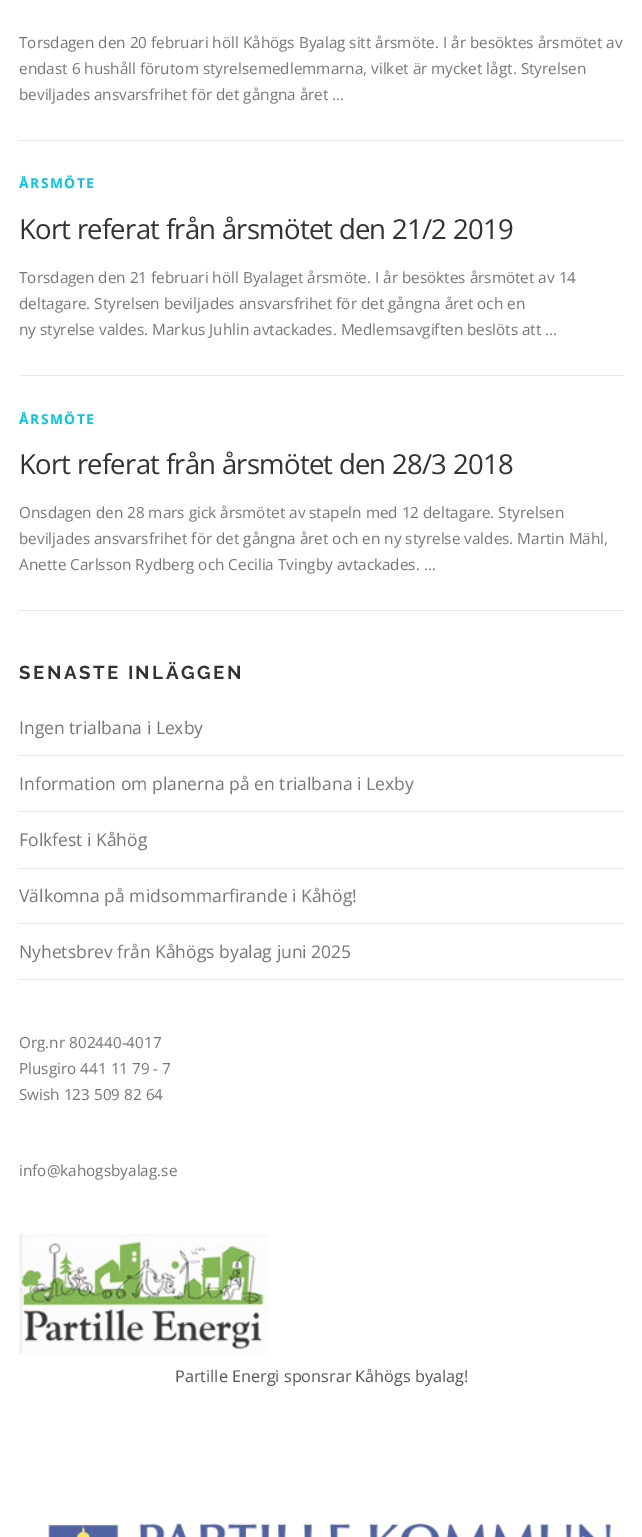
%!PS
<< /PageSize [642 1537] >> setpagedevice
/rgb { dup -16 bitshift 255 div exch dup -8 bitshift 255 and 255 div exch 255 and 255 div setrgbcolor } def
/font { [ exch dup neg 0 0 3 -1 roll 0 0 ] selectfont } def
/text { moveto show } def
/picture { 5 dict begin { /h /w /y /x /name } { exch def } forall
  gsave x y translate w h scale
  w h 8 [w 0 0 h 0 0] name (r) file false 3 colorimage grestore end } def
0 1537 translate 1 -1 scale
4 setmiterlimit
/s1 { /OpenSans-Regular 15.3 font 16#777777 rgb } def
/s2 { /OpenSans-Regular 17.5 font 16#777777 rgb } def
/s3 { /OpenSans-Regular 16.25 font 16#555555 rgb } def
16#FFFFFF rgb
0 0 642 1537 rectfill
s1
(Torsdagen den 20 februari höll Kåhögs Byalag sitt årsmöte. I år besöktes årsmötet av) 19 48 text
(endast 6 hushåll förutom styrelsemedlemmarna, vilket är mycket lågt. Styrelsen) 19 74 text
(beviljades ansvarsfrihet för det gångna året …) 19 100 text
16#E9E9E9 rgb
19 140 605 1 rectfill
/OpenSans-Bold 13.75 font
16#03C4EB rgb
19 188 moveto 1.5 0 (ÅRSMÖTE) ashow
/OpenSans-Regular 27.5 font
16#333333 rgb
19 239 moveto -0.75 0 (Kort referat från årsmötet den 21/2 2019) ashow
s1
(Torsdagen den 21 februari höll Byalaget årsmöte. I år besöktes årsmötet av 14) 19 283 text
(deltagare. Styrelsen beviljades ansvarsfrihet för det gångna året och en) 19 309 text
(ny styrelse valdes. Markus Juhlin avtackades. Medlemsavgiften beslöts att …) 19 335 text
16#E9E9E9 rgb
19 375 605 1 rectfill
19 610 605 1 rectfill
/OpenSans-Bold 13.75 font
16#03C4EB rgb
19 424 moveto 1.5 0 (ÅRSMÖTE) ashow
/OpenSans-Regular 27.5 font
16#333333 rgb
19 474 moveto -0.75 0 (Kort referat från årsmötet den 28/3 2018) ashow
s1
(Onsdagen den 28 mars gick årsmötet av stapeln med 12 deltagare. Styrelsen) 19 518 text
(beviljades ansvarsfrihet för det gångna året och en ny styrelse valdes. Martin Mähl,) 19 544 text
(Anette Carlsson Rydberg och Cecilia Tvingby avtackades. …) 19 570 text
/Raleway-Bold 18.75 font
16#333333 rgb
19 679 moveto 2.5 0 (SENASTE INLÄGGEN) ashow
16#E9E9E9 rgb
19 755 605 1 rectfill
s2
(Ingen trialbana i Lexby) 19 734 text
16#E9E9E9 rgb
19 811 605 1 rectfill
s2
(Information om planerna på en trialbana i Lexby) 19 790 text
16#E9E9E9 rgb
19 868 605 1 rectfill
s2
(Folkfest i Kåhög) 19 846 text
16#E9E9E9 rgb
19 923 605 1 rectfill
s2
(Välkomna på midsommarfirande i Kåhög!) 19 902 text
16#E9E9E9 rgb
19 979 605 1 rectfill
s2
(Nyhetsbrev från Kåhögs byalag juni 2025) 19 958 text
s1
(Org.nr 802440-4017) 19 1048 text
(Plusgiro 441 11 79 - 7) 19 1074 text
(Swish 123 509 82 64) 19 1100 text
(info@kahogsbyalag.se) 19 1176 text
(pic1.raw) 18 1233 251 121 picture
s3
(Partille Energi sponsrar Kåhögs byalag!) 175 1382 text
(pic2.raw) 48 1523 563 14 picture
showpage
